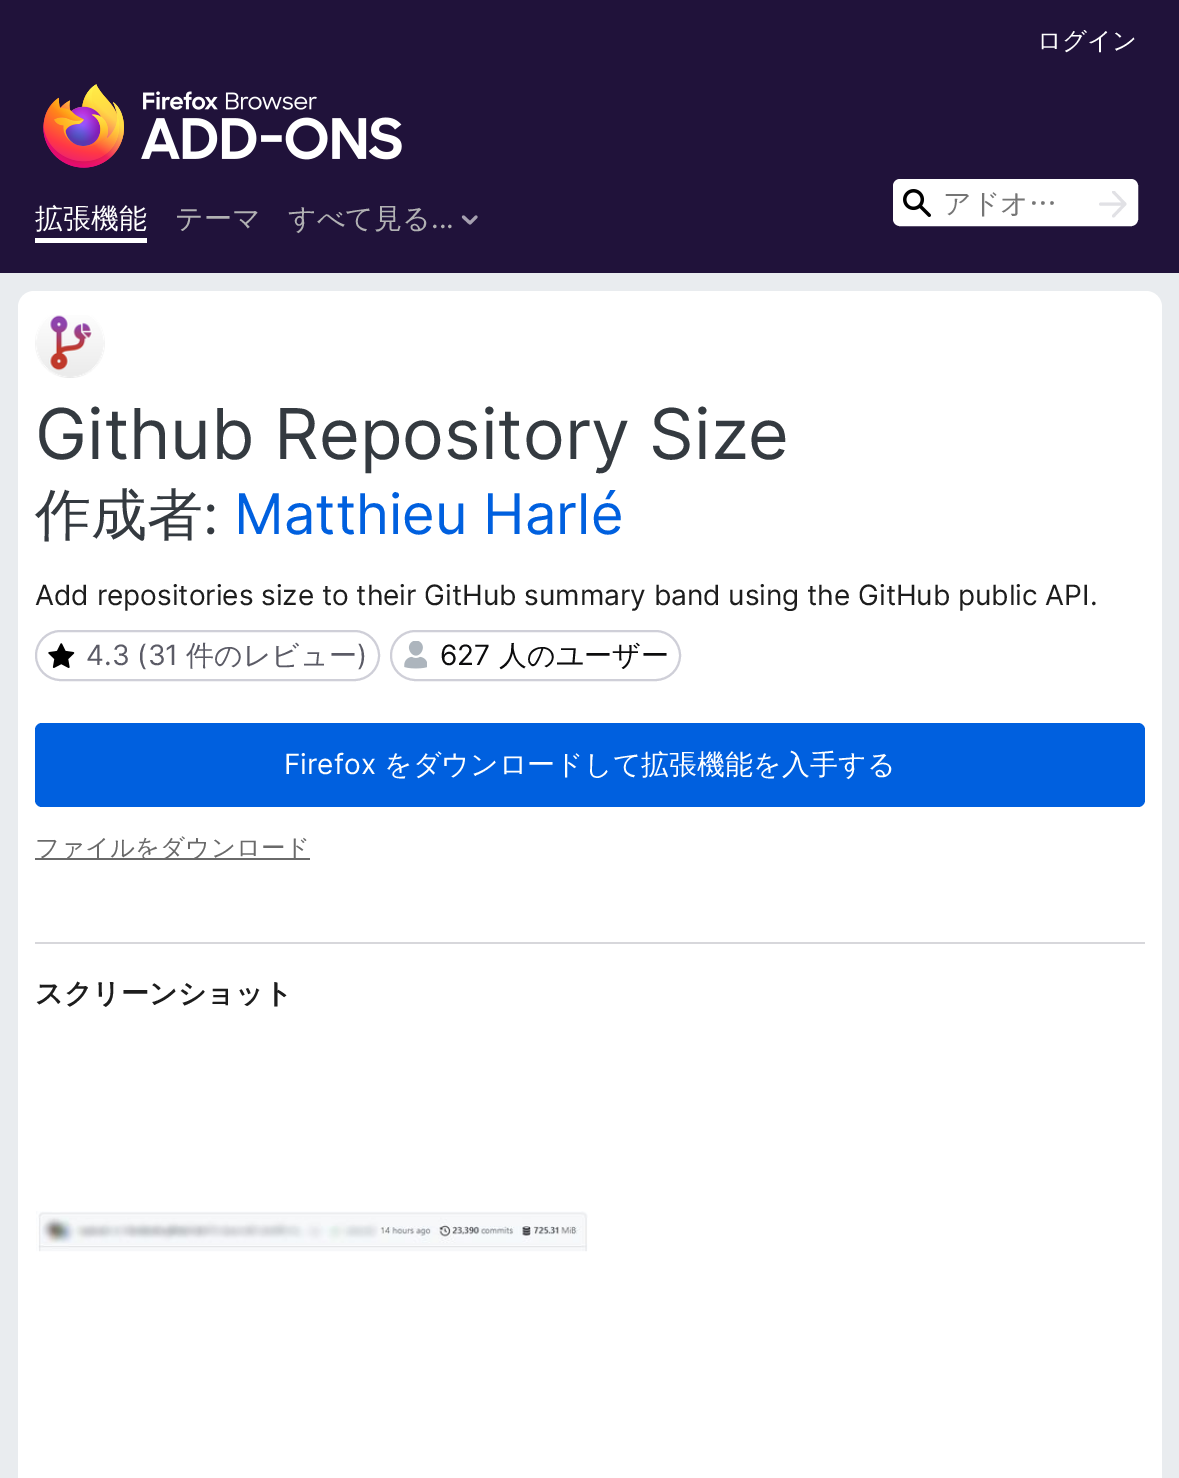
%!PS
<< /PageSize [1179 1478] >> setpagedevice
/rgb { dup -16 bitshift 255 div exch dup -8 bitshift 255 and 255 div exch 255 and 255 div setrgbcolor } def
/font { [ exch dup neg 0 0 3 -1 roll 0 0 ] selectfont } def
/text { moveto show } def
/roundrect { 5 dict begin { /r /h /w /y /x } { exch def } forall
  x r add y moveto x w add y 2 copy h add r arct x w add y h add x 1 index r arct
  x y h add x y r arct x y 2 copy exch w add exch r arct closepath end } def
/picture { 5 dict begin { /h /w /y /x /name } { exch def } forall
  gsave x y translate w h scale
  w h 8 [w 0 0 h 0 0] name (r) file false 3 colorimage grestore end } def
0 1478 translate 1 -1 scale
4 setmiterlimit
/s1 { /WenQuanYiZenHei-Medium 24.5 font 16#FFFFFF rgb } def
/s2 { /WenQuanYiZenHei-Medium 28 font 16#FFFFFF rgb } def
/s3 { /WenQuanYiZenHei-Medium 28 font 16#B1B1B3 rgb } def
/s4 { /Inter-Regular 28 font 16#B1B1B3 rgb } def
/s5 { /WenQuanYiZenHei-Medium 28 font 16#757575 rgb } def
/s6 { /Inter-Regular 70 font 16#343A40 rgb } def
/s7 { /WenQuanYiZenHei-Medium 56 font 16#343A40 rgb } def
/s8 { /Inter-Regular 56 font 16#343A40 rgb } def
/s9 { /Inter-Regular 56 font 16#0060DF rgb } def
/s10 { /Inter-Regular 28 font 16#1D1D1D rgb } def
/s11 { /Inter-Regular 28 font 16#5B5B66 rgb } def
/s12 { /WenQuanYiZenHei-Medium 28 font 16#5B5B66 rgb } def
/s13 { /Inter-Regular 28 font 16#0C0C0D rgb } def
/s14 { /WenQuanYiZenHei-Medium 28 font 16#0C0C0D rgb } def
/s15 { /Inter-Regular 28 font 16#FFFFFF rgb } def
/s16 { /WenQuanYiZenHei-Medium 24.5 font 16#6A6A6A rgb } def
/s17 { /WenQuanYiZenHei-Bold 28 font 16#1D1D1D rgb } def
16#20123A rgb
0 0 1179 1478 rectfill
s1
(ログイン) 1037 49 text
(pic1.raw) 43 84 359 84 picture
s2
(拡張機能) 35 228 text
35 238 112 5 rectfill
s3
(テーマ) 175 228 text
(すべて見る) 288 228 text
s4
(...) 431 228 text
16#A6A0B0 rgb
3.1 setlinewidth
1 setlinecap
1 setlinejoin
476 217 moveto 470 223 lineto 463.5 217 lineto stroke
16#FFFFFF rgb
894 180 243 45 6 roundrect gsave fill grestore
2 setlinewidth
0 setlinecap
0 setlinejoin
stroke
(pic2.raw) 903 189 28 28 picture
s5
(アドオ…) 943 213 text
gsave
1099 191 28 28 rectclip
16#E1E1E5 rgb
2.9 setlinewidth
1 setlinecap
1 setlinejoin
1100.5 204 moveto 1123.5 204 lineto 1113.5 192 moveto 1125 204 lineto 1113.5 216 lineto stroke
grestore
16#E9ECEF rgb
0 273 1179 1205 rectfill
16#FFFFFF rgb
18 291 1144 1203 16 roundrect fill
(pic3.raw) 35 315 70 63 picture
s6
(Github Repository Size) 35 459 text
s7
(作成者) 35 534 text
s8
(:) 203 534 text
s9
(Matthieu Harlé) 234 534 text
s10
(Add repositories size to their GitHub summary band using the GitHub public API.) 35 605 text
16#CFCFD8 rgb
36 631 343 49 24.5 roundrect stroke
(pic4.raw) 48 643 27 25 picture
s11
(4.3 \(31) 86 665 text
s12
(件のレビュー) 186 665 text
s11
(\)) 357 665 text
16#CFCFD8 rgb
391 631 289 49 24.5 roundrect stroke
(pic5.raw) 404 641 23 28 picture
s13
(627) 440 665 text
s14
(人のユーザー) 499 665 text
16#0060DF rgb
35 723 1110 84 7 roundrect fill
s15
(Firefox) 284 774 text
s2
(をダウンロードして拡張機能を入手する) 384 774 text
16#6A6A6A rgb
35 858 275 2 rectfill
s16
(ファイルをダウンロード) 35 856 text
16#D7D7DB rgb
35 942 1110 2 rectfill
s17
(スクリーンショット) 35 1003 text
(pic6.raw) 36 1211 552 41 picture
showpage
